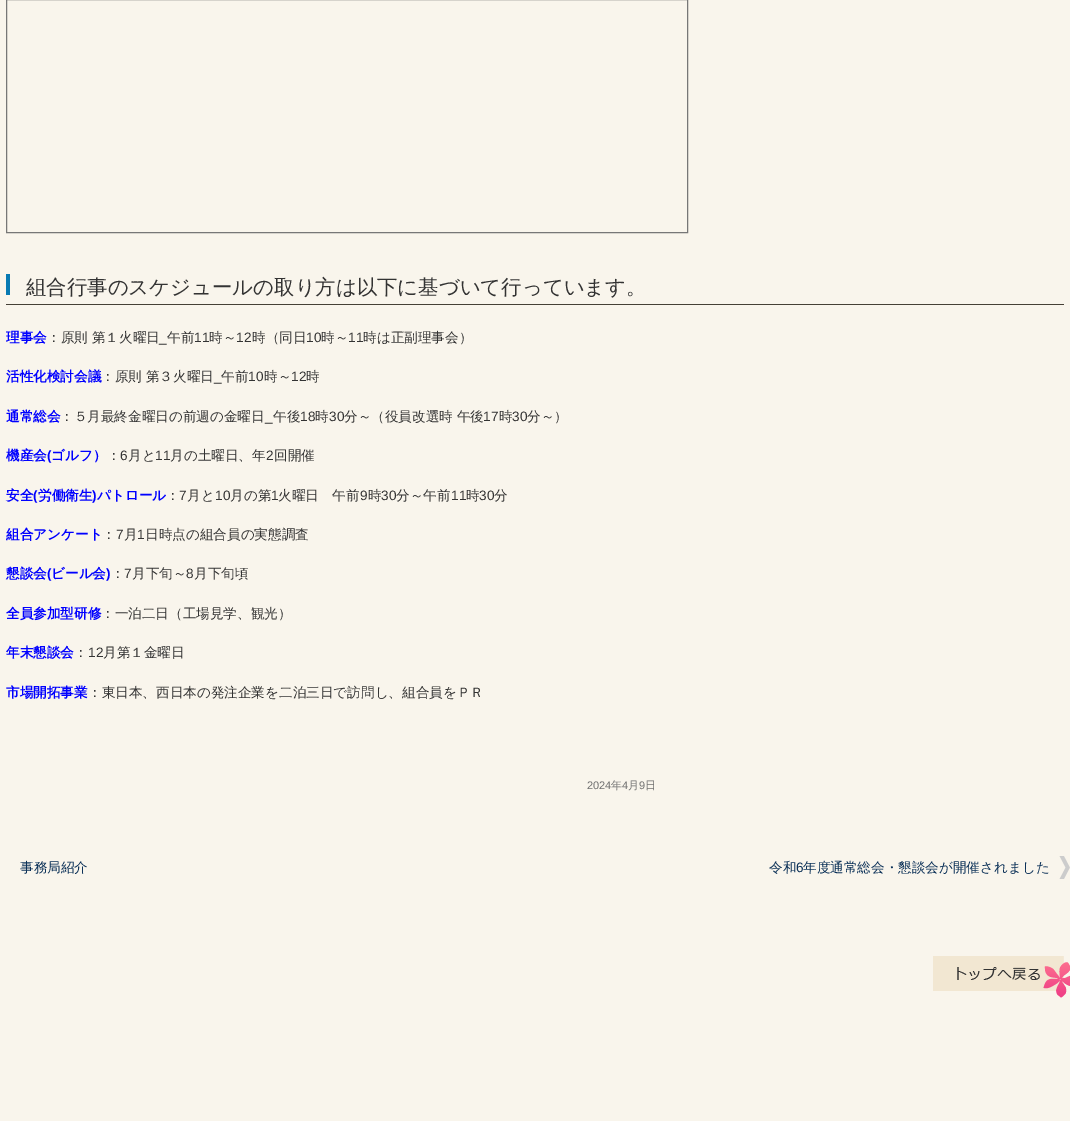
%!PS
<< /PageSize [1070 1121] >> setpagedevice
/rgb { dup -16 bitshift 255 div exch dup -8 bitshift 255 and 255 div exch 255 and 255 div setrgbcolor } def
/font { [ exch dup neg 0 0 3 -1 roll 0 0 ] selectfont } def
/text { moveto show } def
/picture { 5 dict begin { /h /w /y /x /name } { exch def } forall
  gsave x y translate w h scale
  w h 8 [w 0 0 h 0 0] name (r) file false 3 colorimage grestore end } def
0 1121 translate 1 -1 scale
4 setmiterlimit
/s1 { /WenQuanYiZenHei-Medium 20.4 font 16#333333 rgb } def
/s2 { /WenQuanYiZenHei-Bold 13.6 font 16#0000FF rgb } def
/s3 { /WenQuanYiZenHei-Medium 13.6 font 16#333333 rgb } def
/s4 { /LiberationSans-Regular 13.6 font 16#333333 rgb } def
/s5 { /LiberationSans-Bold 13.6 font 16#0000FF rgb } def
/s6 { /LiberationSans-Regular 11 font 16#707070 rgb } def
/s7 { /WenQuanYiZenHei-Medium 11 font 16#707070 rgb } def
/s8 { /WenQuanYiZenHei-Medium 13.6 font 16#0C3158 rgb } def
/s9 { /LiberationSans-Regular 13.6 font 16#0C3158 rgb } def
16#F9F5EC rgb
0 0 1070 1121 rectfill
16#777777 rgb
6.5 -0.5 681 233 rectstroke
16#087AB3 rgb
6 274 4 21 rectfill
16#454036 rgb
6 304 1058 1 rectfill
s1
(組合行事のスケジュールの取り方は以下に基づいて行っています。) 26 294 text
s2
(理事会) 6 342 text
s3
(：原則 第１火曜日) 47 342 text
s4
(_) 159 342 text
s3
(午前) 167 342 text
s4
(11) 194 342 text
s3
(時～) 209 342 text
s4
(12) 236 342 text
s3
(時（同日) 252 342 text
s4
(10) 306 342 text
s3
(時～) 321 342 text
s4
(11) 348 342 text
s3
(時は正副理事会）) 363 342 text
s2
(活性化検討会議) 6 381 text
s3
(：原則 第３火曜日) 101 381 text
s4
(_) 214 381 text
s3
(午前) 221 381 text
s4
(10) 248 381 text
s3
(時～) 264 381 text
s4
(12) 291 381 text
s3
(時) 306 381 text
s2
(通常総会) 6 421 text
s3
(：５月最終金曜日の前週の金曜日) 60 421 text
s4
(_) 265 421 text
s3
(午後) 273 421 text
s4
(18) 300 421 text
s3
(時) 315 421 text
s4
(30) 329 421 text
s3
(分～（役員改選時 午後) 344 421 text
s4
(17) 483 421 text
s3
(時) 499 421 text
s4
(30) 512 421 text
s3
(分～）) 527 421 text
s2
(機産会) 6 460 text
s5
(\() 47 460 text
s2
(ゴルフ）) 51 460 text
s3
(：) 107 460 text
s4
(6) 120 460 text
s3
(月と) 128 460 text
s4
(11) 155 460 text
s3
(月の土曜日、年) 170 460 text
s4
(2) 266 460 text
s3
(回開催) 274 460 text
s2
(安全) 6 500 text
s5
(\() 33 500 text
s2
(労働衛生) 38 500 text
s5
(\)) 92 500 text
s2
(パトロール) 97 500 text
s3
(：) 166 500 text
s4
(7) 179 500 text
s3
(月と) 187 500 text
s4
(10) 215 500 text
s3
(月の第) 230 500 text
s4
(1) 271 500 text
s3
(火曜日　午前) 278 500 text
s4
(9) 360 500 text
s3
(時) 368 500 text
s4
(30) 381 500 text
s3
(分～午前) 396 500 text
s4
(11) 451 500 text
s3
(時) 466 500 text
s4
(30) 479 500 text
s3
(分) 494 500 text
s2
(組合アンケート) 6 539 text
s3
(：) 102 539 text
s4
(7) 116 539 text
s3
(月) 124 539 text
s4
(1) 137 539 text
s3
(日時点の組合員の実態調査) 145 539 text
s2
(懇談会) 6 578 text
s5
(\() 47 578 text
s2
(ビール会) 51 578 text
s5
(\)) 106 578 text
s3
(：) 111 578 text
s4
(7) 124 578 text
s3
(月下旬～) 132 578 text
s4
(8) 186 578 text
s3
(月下旬頃) 194 578 text
s2
(全員参加型研修) 6 618 text
s3
(：一泊二日（工場見学、観光）) 101 618 text
s2
(年末懇談会) 6 657 text
s3
(：) 74 657 text
s4
(12) 88 657 text
s3
(月第１金曜日) 103 657 text
s2
(市場開拓事業) 6 697 text
s3
(：東日本、西日本の発注企業を二泊三日で訪問し、組合員をＰＲ) 88 697 text
s6
(2024) 587 789 text
s7
(年) 611 789 text
s6
(4) 622 789 text
s7
(月) 628 789 text
s6
(9) 639 789 text
s7
(日) 645 789 text
s8
(事務局紹介) 20 872 text
(pic1.raw) 1059 856 11 23 picture
(令和) 769 872 text
s9
(6) 796 872 text
s8
(年度通常総会・懇談会が開催されました) 803 872 text
(pic2.raw) 933 956 137 42 picture
showpage
